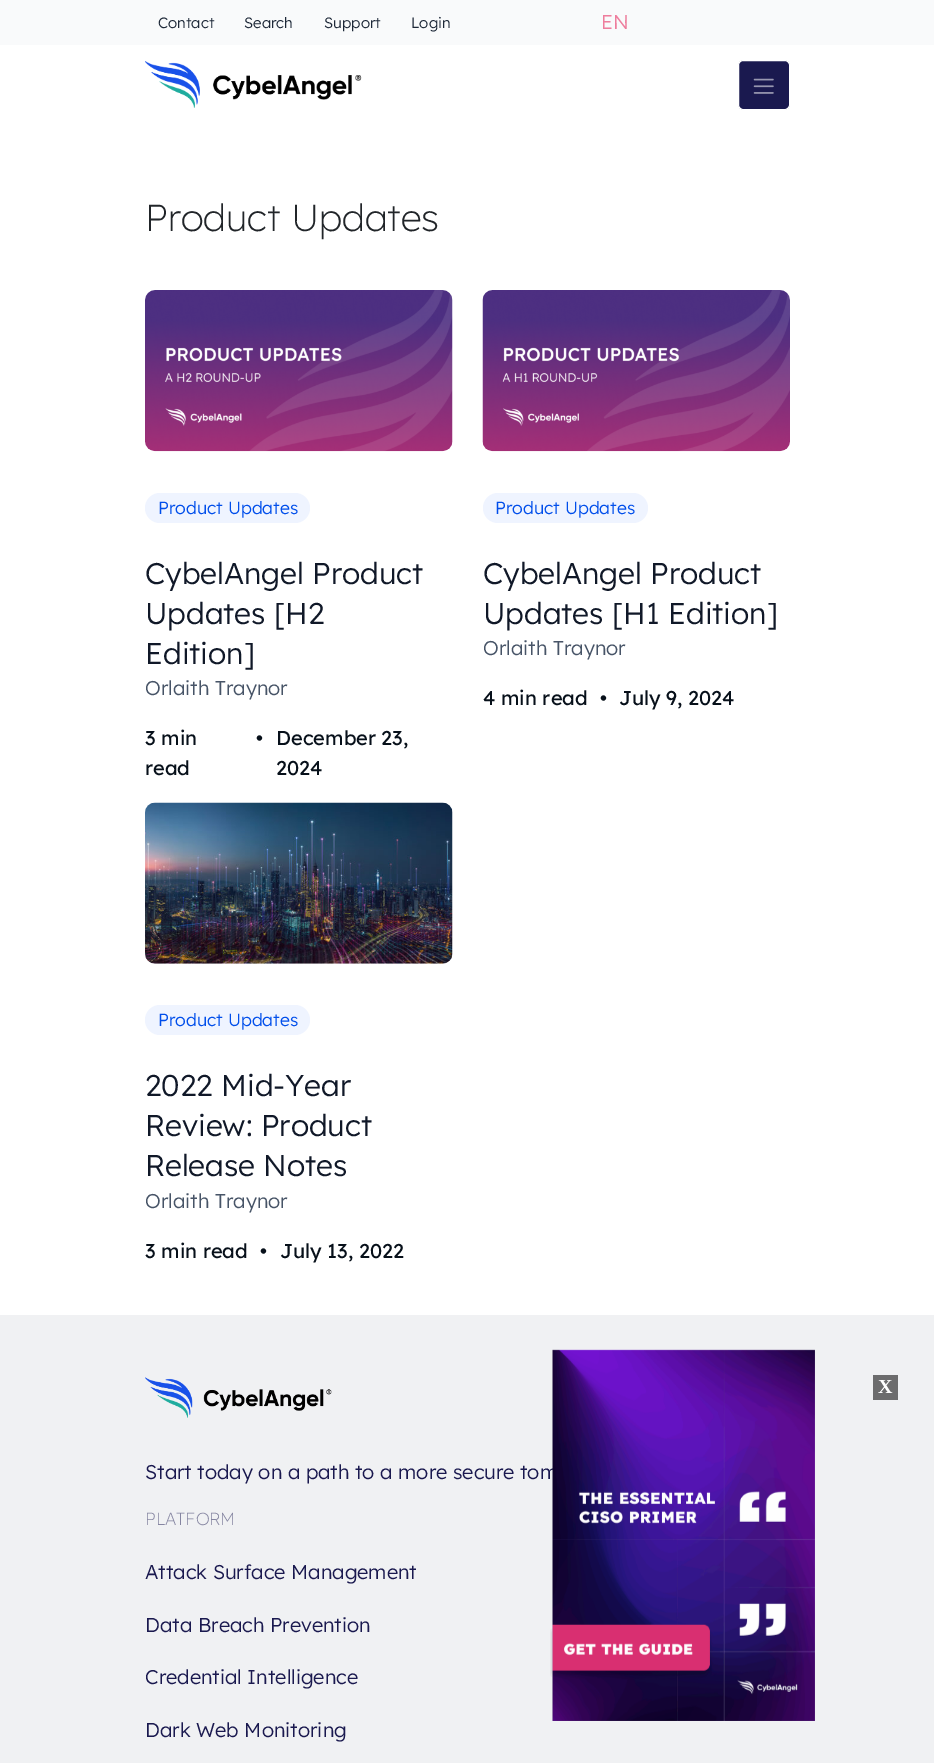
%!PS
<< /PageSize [934 1763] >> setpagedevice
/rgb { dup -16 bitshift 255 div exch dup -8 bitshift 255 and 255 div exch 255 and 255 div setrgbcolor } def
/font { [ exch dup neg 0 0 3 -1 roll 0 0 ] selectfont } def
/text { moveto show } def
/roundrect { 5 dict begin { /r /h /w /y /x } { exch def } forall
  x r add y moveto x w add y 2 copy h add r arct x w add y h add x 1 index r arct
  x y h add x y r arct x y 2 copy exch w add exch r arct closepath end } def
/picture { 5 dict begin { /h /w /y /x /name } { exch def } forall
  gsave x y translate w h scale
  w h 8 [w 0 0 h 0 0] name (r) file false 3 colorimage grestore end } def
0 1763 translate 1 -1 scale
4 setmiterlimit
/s1 { /LexendDeca-Light 15 font 16#1D2838 rgb } def
/s2 { /LexendDeca-Light 20 font 16#EE7D9D rgb } def
/s3 { /LexendDeca-ExtraLight 37.5 font 16#212529 rgb } def
/s4 { /LexendDeca-Light 17.5 font 16#004EEB rgb } def
/s5 { /LexendDeca-Light 30 font 16#101828 rgb } def
/s6 { /LexendDeca-Light 20 font 16#475467 rgb } def
/s7 { /LexendDeca-Regular 20 font 16#07101A rgb } def
/s8 { /LexendDeca-Light 20 font 16#1A194F rgb } def
/s9 { /LexendDeca-ExtraLight 17.5 font 16#8585A1 rgb } def
/s10 { /LiberationSerif-Bold 20 font 16#FFFFFF rgb } def
16#FFFFFF rgb
0 0 934 1763 rectfill
16#F9FAFB rgb
0 0 934 45 rectfill
s1
(Contact) 158 28 text
(Search) 244 28 text
(Support) 324 28 text
(Login) 411 28 text
s2
(EN) 601 29 text
(pic1.raw) 145 61 217 47 picture
16#1A194F rgb
738.5 60.5 51 49 4.5 roundrect gsave fill grestore
16#FFFFFF rgb
stroke
(pic2.raw) 753 78 21 16 picture
s3
(Product Updates) 145 231 text
(pic3.raw) 145 290 308 162 picture
16#EFF4FF rgb
145 493 165 30 15 roundrect fill
s4
(Product Updates) 158 514 text
s5
(CybelAngel Product) 145 584 text
(Updates [H2) 145 624 text
(Edition]) 145 664 text
s6
(Orlaith Traynor) 145 695 text
s7
(3 min) 145 745 text
(read) 145 775 text
(•) 256 745 text
(December 23,) 276 745 text
(2024) 276 775 text
(pic4.raw) 482 290 308 162 picture
16#EFF4FF rgb
483 493 165 30 15 roundrect fill
s4
(Product Updates) 495 514 text
s5
(CybelAngel Product) 483 584 text
(Updates [H1 Edition]) 483 624 text
s6
(Orlaith Traynor) 483 655 text
s7
(4 min read) 483 705 text
(•) 600 705 text
(July 9, 2024) 619 705 text
(pic5.raw) 145 802 308 162 picture
16#EFF4FF rgb
145 1005 165 30 15 roundrect fill
s4
(Product Updates) 158 1026 text
s5
(2022 Mid-Year) 145 1096 text
(Review: Product) 145 1136 text
(Release Notes) 145 1176 text
s6
(Orlaith Traynor) 145 1208 text
s7
(3 min read) 145 1258 text
(•) 260 1258 text
(July 13, 2022) 280 1258 text
16#F0F1F3 rgb
0 1315 934 448 rectfill
(pic6.raw) 145 1377 187 41 picture
s8
(Start today on a path to a more secure tom) 145 1479 text
s9
(PLATFORM) 145 1525 text
s8
(Attack Surface Management) 145 1579 text
(Data Breach Prevention) 145 1632 text
(Credential Intelligence) 145 1684 text
(Dark Web Monitoring) 145 1737 text
(pic7.raw) 550 1349 265 372 picture
16#6C6C6D rgb
873 1375 25 25 rectfill
s10
(X) 878 1393 text
showpage
